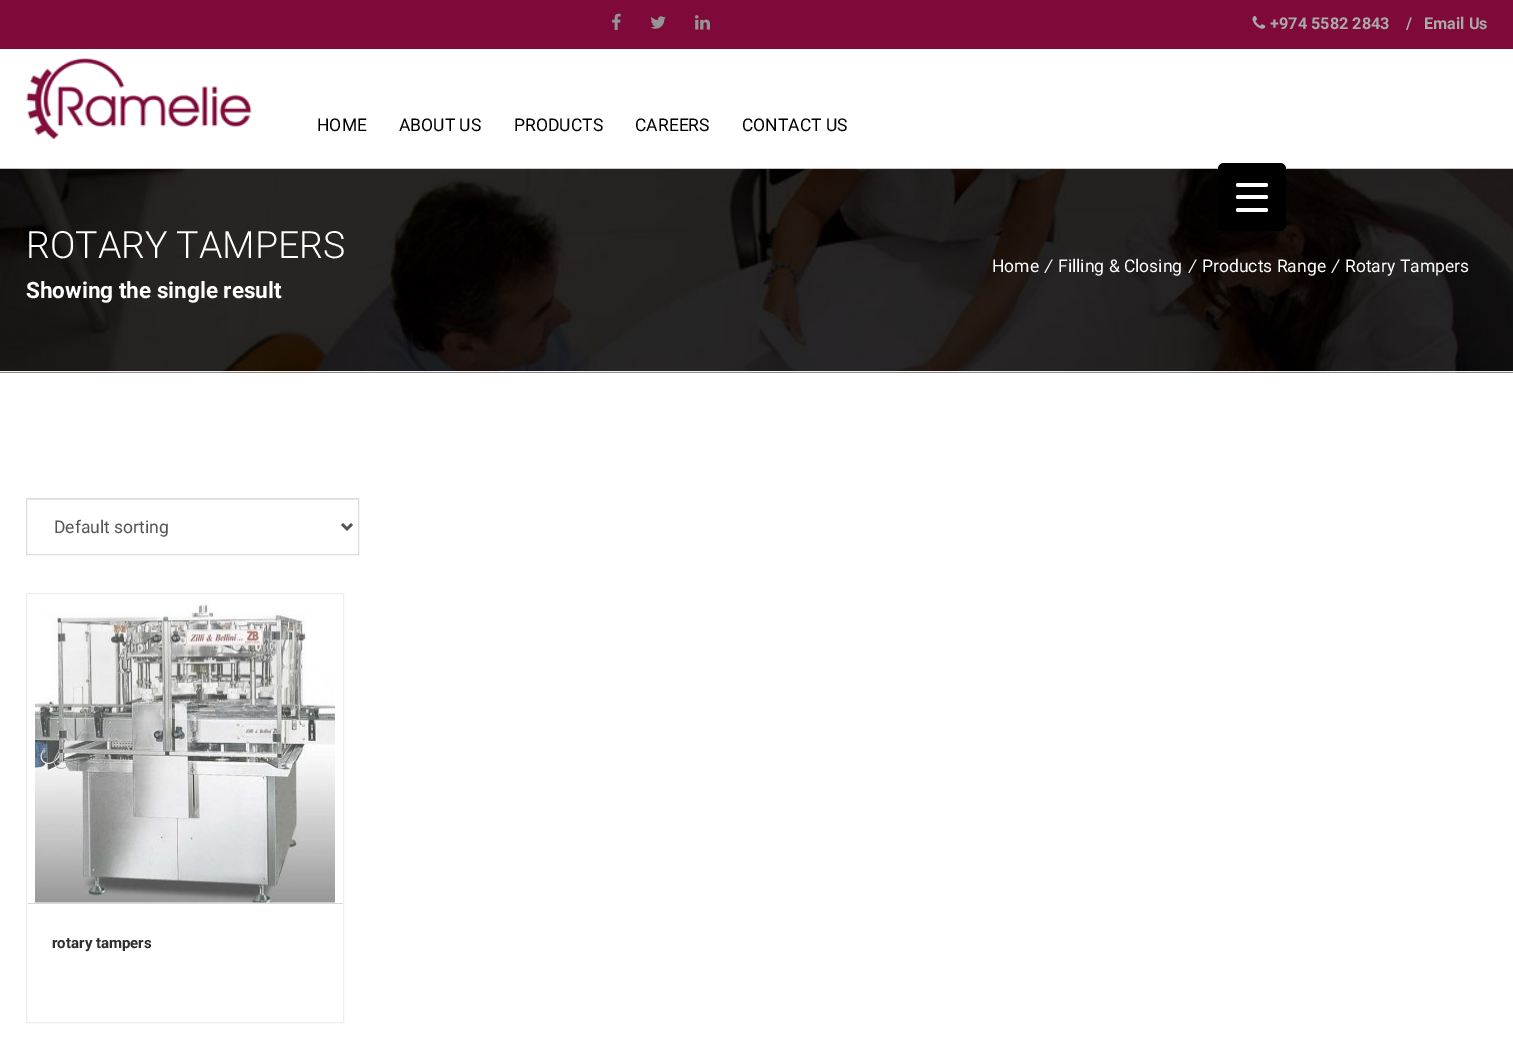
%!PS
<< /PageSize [1513 1048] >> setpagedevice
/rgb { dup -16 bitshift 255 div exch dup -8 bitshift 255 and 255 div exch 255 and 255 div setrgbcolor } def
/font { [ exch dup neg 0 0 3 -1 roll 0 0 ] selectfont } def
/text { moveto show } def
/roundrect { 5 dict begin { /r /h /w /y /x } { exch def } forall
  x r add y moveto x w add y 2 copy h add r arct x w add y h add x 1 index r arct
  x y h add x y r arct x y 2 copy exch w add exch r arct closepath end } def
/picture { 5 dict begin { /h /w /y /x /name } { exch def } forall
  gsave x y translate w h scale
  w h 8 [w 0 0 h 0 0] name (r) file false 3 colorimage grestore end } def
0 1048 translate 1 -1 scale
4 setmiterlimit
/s1 { /Roboto-Bold 16.25 font 16#A9A9A9 rgb } def
/s2 { /Roboto-Regular 17.5 font 16#000000 rgb } def
/s3 { /Roboto-Light 37.5 font 16#FFFFFF rgb } def
/s4 { /Roboto-Bold 22.5 font 16#FFFFFF rgb } def
/s5 { /Roboto-Regular 17.5 font 16#FFFFFF rgb } def
/s6 { /Roboto-Italic 17.5 font 16#FFFFFF rgb } def
/s7 { /Roboto-Regular 17.5 font 16#555555 rgb } def
/s8 { /Roboto-Bold 15 font 16#2F2F2F rgb } def
16#FFFFFF rgb
0 0 1513 1048 rectfill
16#7F0A3A rgb
0 0 1513 49 rectfill
(pic1.raw) 612 13 9 17 picture
(pic2.raw) 650 16 16 13 picture
(pic3.raw) 695 15 15 15 picture
(pic4.raw) 1252 16 14 13 picture
s1
(+974 5582 2843) 1270 29 text
(/) 1406 29 text
(Email Us) 1424 29 text
(pic5.raw) 26 58 226 81 picture
s2
(HOME) 317 131 text
(ABOUT US) 399 131 text
(PRODUCTS) 514 131 text
(CAREERS) 635 131 text
(CONTACT US) 742 131 text
(pic6.raw) 0 168 1513 205 picture
16#EEEEEE rgb
0 371 1513 1 rectfill
s3
(ROTARY TAMPERS) 26 258 text
s4
(Showing the single result) 26 298 text
s5
(Home) 992 272 text
s6
(/) 1045 272 text
s5
(Filling & Closing) 1058 272 text
s6
(/) 1189 272 text
s5
(Products Range) 1202 272 text
s6
(/) 1332 272 text
s5
(Rotary Tampers) 1345 272 text
16#ECECEC rgb
28 499 330 1 rectfill
16#DCDCDC rgb
26.5 498.5 332 56 rectstroke
16#555555 rgb
2.5 setlinewidth
342 524 moveto 347 529 lineto 352 524 lineto stroke
(Default sorting) 54 533 text
16#EEEEEE rgb
1 setlinewidth
26.5 593.5 317 429 rectstroke
16#D8D8D8 rgb
28 903 315 1 rectfill
(pic7.raw) 35 601 300 302 picture
s8
(rotary tampers) 52 948 text
16#000000 rgb
1218 163 68 68 6 roundrect fill
16#FFFFFF rgb
1236 195 32 4 2 roundrect fill
1236 183 32 4 2 roundrect fill
1236 208 32 4 2 roundrect fill
showpage
